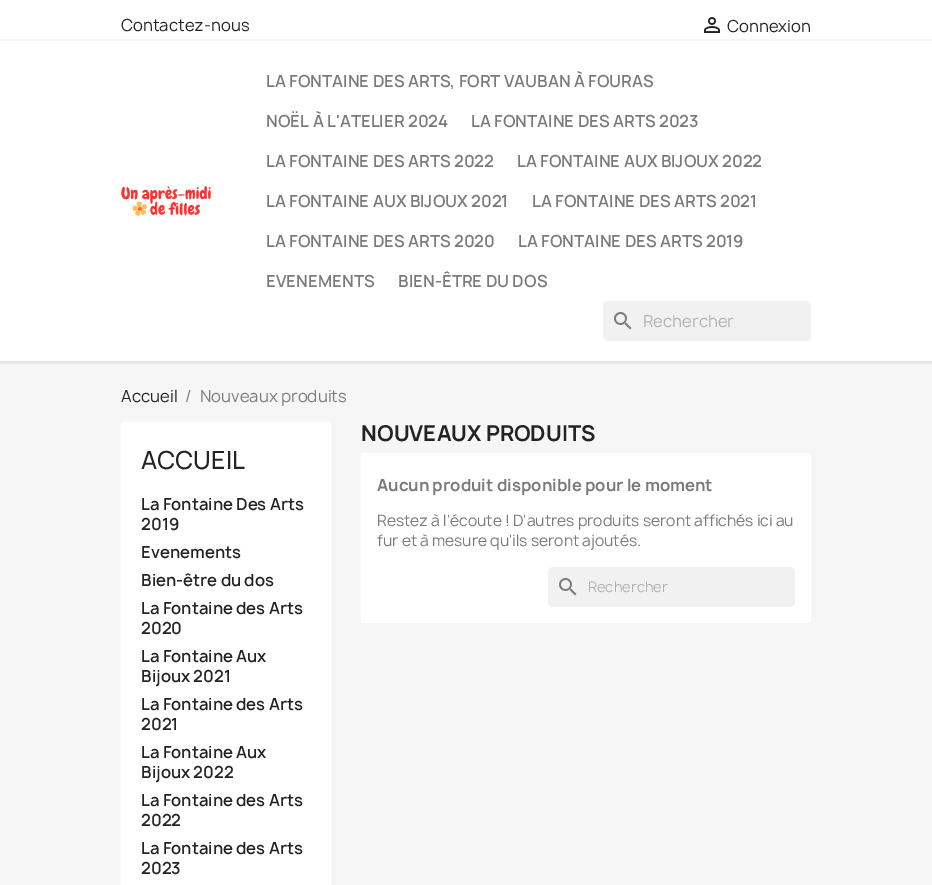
%!PS
<< /PageSize [932 885] /PageUsesTransparency true >> setpagedevice
/rgb { dup -16 bitshift 255 div exch dup -8 bitshift 255 and 255 div exch 255 and 255 div setrgbcolor } def
/font { [ exch dup neg 0 0 3 -1 roll 0 0 ] selectfont } def
/text { moveto show } def
/alpha { dup .setfillconstantalpha .setstrokeconstantalpha } def
/roundrect { 5 dict begin { /r /h /w /y /x } { exch def } forall
  x r add y moveto x w add y 2 copy h add r arct x w add y h add x 1 index r arct
  x y h add x y r arct x y 2 copy exch w add exch r arct closepath end } def
/shadow { 12 dict begin { /a /b /q /h /w /y /x } { exch def } forall gsave /was 0 def
  9 -2 -9 { dup b mul 4 div /e exch def 1 sub .425 mul 2.718 exch exp 1 add a .99 .min exch div /now exch def
    1 1 now sub 1 was sub div sub alpha /was now def
    w h .min e 2 mul add 0 gt { x e sub y e sub w e 2 mul add h e 2 mul add
      q e add b .6 mul add w h .min 2 div e add .min 0 .max roundrect fill } if } for grestore end } def
/picture { 5 dict begin { /h /w /y /x /name } { exch def } forall
  gsave x y translate w h scale
  w h 8 [w 0 0 h 0 0] name (r) file false 3 colorimage grestore end } def
0 .pushpdf14devicefilter
0 885 translate 1 -1 scale
4 setmiterlimit
/s1 { /Manrope-Regular 16 font 16#232323 rgb } def
/s2 { /Manrope-SemiBold 16 font 16#7A7A7A rgb } def
/s3 { /Manrope-Regular 16 font 16#B1B1B1 rgb } def
/s4 { /Manrope-Regular 16 font 16#7A7A7A rgb } def
/s5 { /Manrope-Medium 24 font 16#232323 rgb } def
/s6 { /Manrope-SemiBold 16 font 16#232323 rgb } def
/s7 { /Manrope-Bold 21 font 16#232323 rgb } def
/s8 { /Manrope-Bold 16 font 16#7A7A7A rgb } def
/s9 { /Manrope-Regular 15 font 16#7A7A7A rgb } def
/s10 { /Manrope-Regular 14 font 16#B1B1B1 rgb } def
16#FFFFFF rgb
0 0 932 885 rectfill
16#F6F6F6 rgb
0 361 932 524 rectfill
gsave
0 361 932 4 rectclip
16#000000 rgb
0 2 932 361 0 2.5 0.11 shadow
grestore
0 39 932 2 rectfill
s1
(Contactez-nous) 121 31 text
(pic1.raw) 704 17 16 16 picture
(Connexion) 727 32 text
(pic2.raw) 121 186 90 30 picture
s2
(LA FONTAINE DES ARTS, FORT VAUBAN À FOURAS) 266 87 text
(NOËL À L'ATELIER 2024) 266 127 text
(LA FONTAINE DES ARTS 2023) 471 127 text
(LA FONTAINE DES ARTS 2022) 266 167 text
(LA FONTAINE AUX BIJOUX 2022) 517 167 text
(LA FONTAINE AUX BIJOUX 2021) 266 207 text
(LA FONTAINE DES ARTS 2021) 532 207 text
(LA FONTAINE DES ARTS 2020) 266 247 text
(LA FONTAINE DES ARTS 2019) 518 247 text
(EVENEMENTS) 266 287 text
(BIEN-ÊTRE DU DOS) 398 287 text
16#F1F1F1 rgb
603 301 208 40 5 roundrect fill
(pic3.raw) 614 312 18 18 picture
s3
(Rechercher) 643 327 text
s1
(Accueil) 121 402 text
s4
(/) 185 402 text
(Nouveaux produits) 200 402 text
16#FFFFFF rgb
121 422 210 463 rectfill
s5
(ACCUEIL) 141 469 text
s6
(La Fontaine Des Arts) 141 510 text
(2019) 141 530 text
(Evenements) 141 558 text
(Bien-être du dos) 141 586 text
(La Fontaine des Arts) 141 614 text
(2020) 141 634 text
(La Fontaine Aux) 141 662 text
(Bijoux 2021) 141 682 text
(La Fontaine des Arts) 141 710 text
(2021) 141 730 text
(La Fontaine Aux) 141 758 text
(Bijoux 2022) 141 778 text
(La Fontaine des Arts) 141 806 text
(2022) 141 826 text
(La Fontaine des Arts) 141 854 text
(2023) 141 874 text
s7
(NOUVEAUX PRODUITS) 361 441 text
16#FFFFFF rgb
361 453 450 170 rectfill
s8
(Aucun produit disponible pour le moment) 377 491 text
s9
(Restez à l'écoute ! D'autres produits seront affichés ici au) 377 526 text
(fur et à mesure qu'ils seront ajoutés.) 377 546 text
16#F1F1F1 rgb
548 567 247 40 5 roundrect fill
(pic3.raw) 559 578 18 18 picture
s10
(Rechercher) 588 592 text
.poppdf14devicefilter showpage
